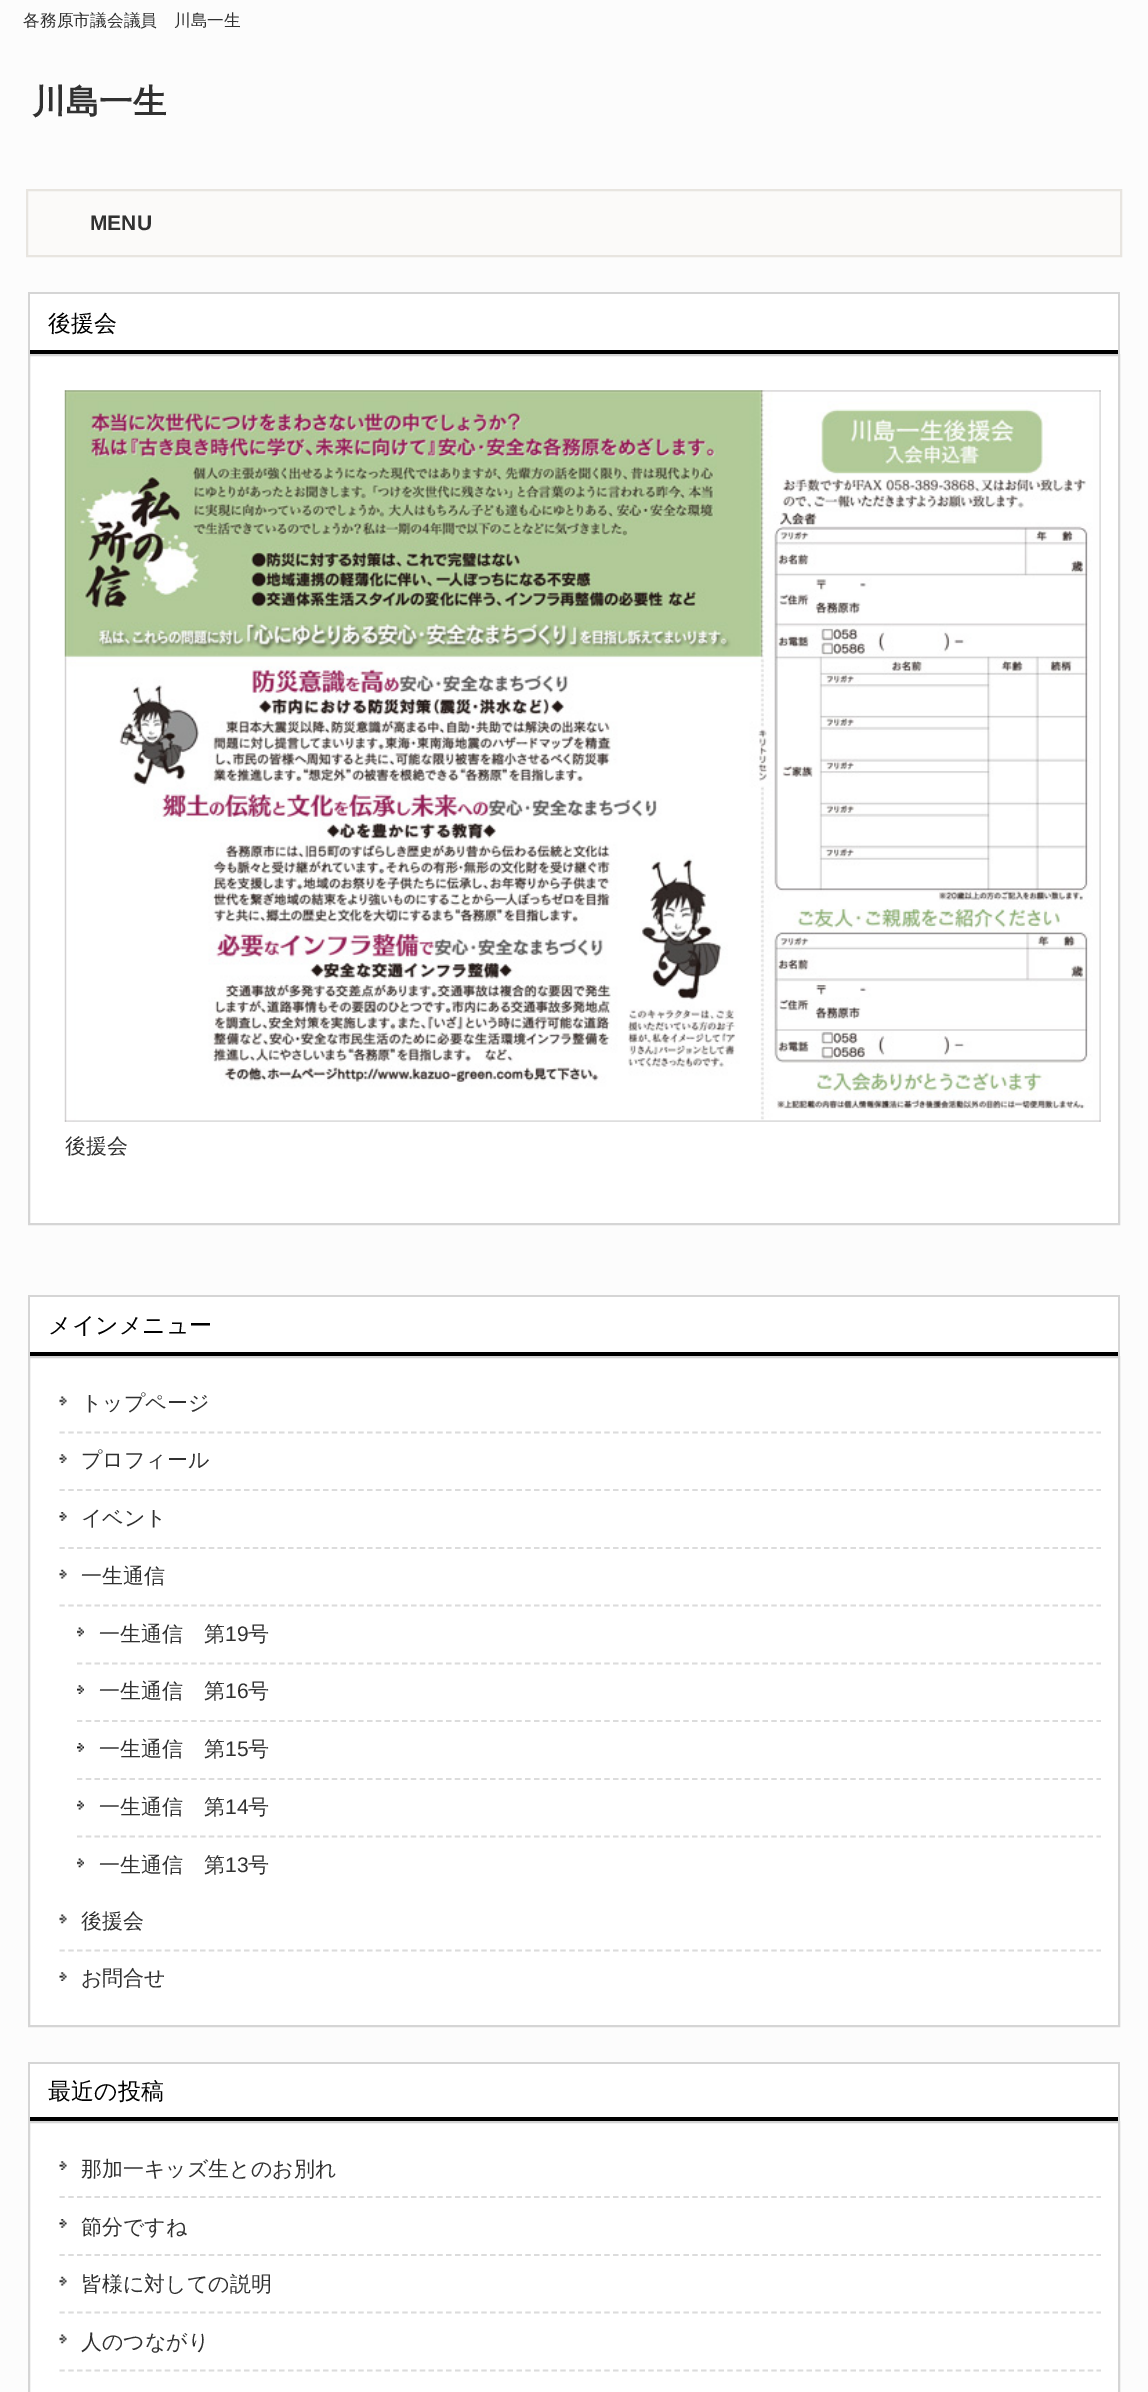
%!PS
<< /PageSize [1148 2392] >> setpagedevice
/rgb { dup -16 bitshift 255 div exch dup -8 bitshift 255 and 255 div exch 255 and 255 div setrgbcolor } def
/font { [ exch dup neg 0 0 3 -1 roll 0 0 ] selectfont } def
/text { moveto show } def
/picture { 5 dict begin { /h /w /y /x /name } { exch def } forall
  gsave x y translate w h scale
  w h 8 [w 0 0 h 0 0] name (r) file false 3 colorimage grestore end } def
0 2392 translate 1 -1 scale
4 setmiterlimit
/s1 { /WenQuanYiZenHei-Medium 16.75 font 16#313131 rgb } def
/s2 { /WenQuanYiZenHei-Bold 33.5 font 16#313131 rgb } def
/s3 { /LiberationSans-Bold 21 font 16#313131 rgb } def
/s4 { /WenQuanYiZenHei-Medium 23 font 16#000000 rgb } def
/s5 { /WenQuanYiZenHei-Medium 21 font 16#313131 rgb } def
/s6 { /LiberationSans-Regular 21 font 16#313131 rgb } def
16#FCFCFC rgb
0 0 1148 2392 rectfill
s1
(各務原市議会議員　川島一生) 23 26 text
s2
(川島一生) 32 113 text
16#FBFAF9 rgb
27 190 moveto 1121 190 lineto 1121 256 lineto 27 256 lineto closepath gsave fill grestore
16#E8E5E0 rgb
2 setlinewidth
stroke
s3
(MENU) 90 230 text
16#FFFFFF rgb
30 294 1088 56 rectfill
16#000000 rgb
28 350 1092 4 rectfill
16#D5D5D5 rgb
28 292 1092 2 rectfill
1118 292 2 62 rectfill
28 292 2 62 rectfill
s4
(後援会) 48 331 text
16#FFFFFF rgb
29 355 moveto 1119 355 lineto 1119 1224 lineto 29 1224 lineto closepath gsave fill grestore
16#D5D5D5 rgb
stroke
(pic1.raw) 64 390 1037 732 picture
s5
(後援会) 65 1153 text
16#FFFFFF rgb
30 1297 1088 55 rectfill
16#000000 rgb
28 1352 1092 4 rectfill
16#D5D5D5 rgb
28 1295 1092 2 rectfill
1118 1295 2 61 rectfill
28 1295 2 61 rectfill
s4
(メインメニュー) 48 1333 text
16#FFFFFF rgb
29 1357 moveto 1119 1357 lineto 1119 2026 lineto 29 2026 lineto closepath gsave fill grestore
16#D5D5D5 rgb
stroke
(pic2.raw) 59 1396 8 10 picture
16#DCDCDC rgb
1.8 setlinewidth
[5.25 3.54] 0 setdash
59.5 1432.5 moveto 1101 1432.5 lineto stroke
s5
(トップページ) 81 1410 text
(pic3.raw) 59 1454 8 9 picture
16#DCDCDC rgb
59.5 1490 moveto 1101 1490 lineto stroke
s5
(プロフィール) 81 1467 text
(pic4.raw) 59 1512 8 9 picture
16#DCDCDC rgb
59.5 1548 moveto 1101 1548 lineto stroke
s5
(イベント) 81 1525 text
(pic5.raw) 59 1569 8 10 picture
16#DCDCDC rgb
59.5 1605.5 moveto 1101 1605.5 lineto stroke
s5
(一生通信) 81 1583 text
(pic6.raw) 77 1627 7 10 picture
16#DCDCDC rgb
77 1663.5 moveto 1101 1663.5 lineto stroke
s5
(一生通信　第) 99 1641 text
s6
(19) 225 1641 text
s5
(号) 248 1641 text
(pic7.raw) 77 1685 7 9 picture
16#DCDCDC rgb
77 1721 moveto 1101 1721 lineto stroke
s5
(一生通信　第) 99 1698 text
s6
(16) 225 1698 text
s5
(号) 248 1698 text
(pic8.raw) 77 1743 7 9 picture
16#DCDCDC rgb
77 1779 moveto 1101 1779 lineto stroke
s5
(一生通信　第) 99 1756 text
s6
(15) 225 1756 text
s5
(号) 248 1756 text
(pic9.raw) 77 1800 7 10 picture
16#DCDCDC rgb
77 1836.5 moveto 1101 1836.5 lineto stroke
s5
(一生通信　第) 99 1814 text
s6
(14) 225 1814 text
s5
(号) 248 1814 text
(pic6.raw) 77 1858 7 10 picture
(一生通信　第) 99 1872 text
s6
(13) 225 1872 text
s5
(号) 248 1872 text
(pic2.raw) 59 1914 8 10 picture
16#DCDCDC rgb
59.5 1950.5 moveto 1101 1950.5 lineto stroke
s5
(後援会) 81 1928 text
(pic3.raw) 59 1972 8 9 picture
(お問合せ) 81 1985 text
16#FFFFFF rgb
30 2064 1088 53 rectfill
16#000000 rgb
28 2117 1092 4 rectfill
16#D5D5D5 rgb
28 2062 1092 2 rectfill
1118 2062 2 59 rectfill
28 2062 2 59 rectfill
s4
(最近の投稿) 48 2099 text
16#FFFFFF rgb
29 2122 moveto 1119 2122 lineto 1119 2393 lineto 29 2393 lineto closepath gsave fill grestore
16#D5D5D5 rgb
2 setlinewidth
[] 0 setdash
stroke
(pic3.raw) 59 2161 8 9 picture
16#DCDCDC rgb
1.8 setlinewidth
[5.25 3.54] 0 setdash
59.5 2197 moveto 1101 2197 lineto stroke
s5
(那加一キッズ生とのお別れ) 81 2176 text
(pic4.raw) 59 2219 8 9 picture
16#DCDCDC rgb
59.5 2255 moveto 1101 2255 lineto stroke
s5
(節分ですね) 81 2234 text
(pic5.raw) 59 2276 8 10 picture
16#DCDCDC rgb
59.5 2312.5 moveto 1101 2312.5 lineto stroke
s5
(皆様に対しての説明) 81 2291 text
(pic2.raw) 59 2334 8 10 picture
16#DCDCDC rgb
59.5 2370.5 moveto 1101 2370.5 lineto stroke
s5
(人のつながり) 81 2349 text
showpage
